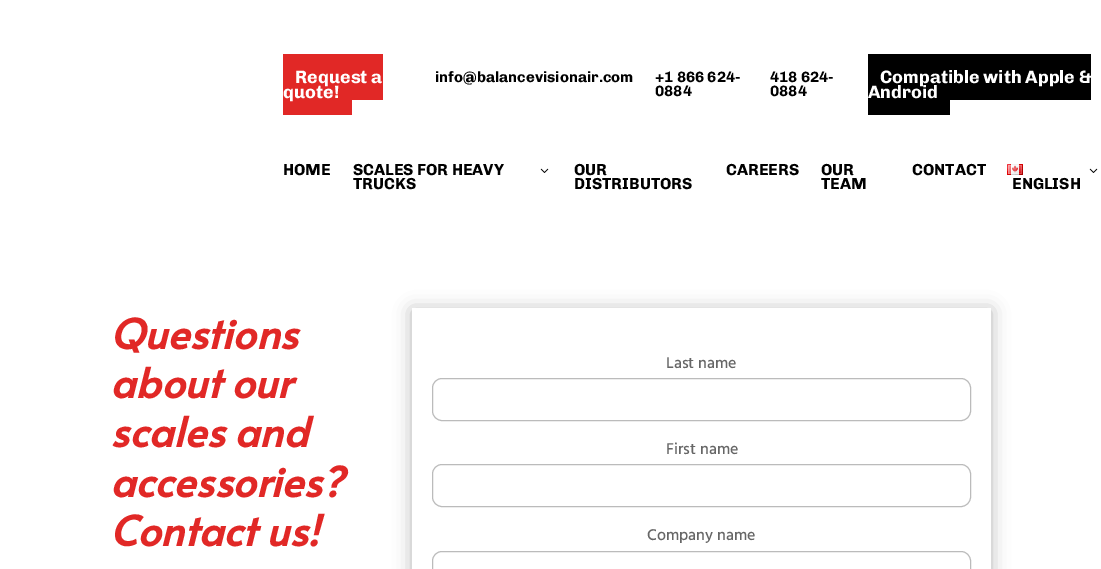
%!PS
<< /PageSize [1101 569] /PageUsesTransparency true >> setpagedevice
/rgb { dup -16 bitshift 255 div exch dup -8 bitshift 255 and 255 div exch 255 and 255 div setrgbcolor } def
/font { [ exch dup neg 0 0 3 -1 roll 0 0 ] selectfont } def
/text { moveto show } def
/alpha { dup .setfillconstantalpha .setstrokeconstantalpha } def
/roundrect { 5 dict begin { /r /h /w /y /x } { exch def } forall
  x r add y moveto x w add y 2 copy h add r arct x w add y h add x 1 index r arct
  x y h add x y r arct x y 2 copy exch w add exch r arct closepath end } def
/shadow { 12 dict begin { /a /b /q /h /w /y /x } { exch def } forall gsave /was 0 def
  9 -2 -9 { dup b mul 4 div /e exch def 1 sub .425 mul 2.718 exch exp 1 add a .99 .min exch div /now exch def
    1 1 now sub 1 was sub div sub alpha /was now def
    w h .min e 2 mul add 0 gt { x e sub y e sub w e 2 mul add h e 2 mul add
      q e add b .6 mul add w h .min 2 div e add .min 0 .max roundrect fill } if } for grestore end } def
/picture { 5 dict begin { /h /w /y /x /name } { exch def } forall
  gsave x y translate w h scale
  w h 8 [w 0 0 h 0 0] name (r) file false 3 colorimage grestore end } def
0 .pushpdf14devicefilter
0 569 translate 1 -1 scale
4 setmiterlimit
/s1 { /Chivo-Bold 18 font 16#FFFFFF rgb } def
/s2 { /Chivo-Bold 15 font 16#000000 rgb } def
/s3 { /Chivo-Bold 16 font 16#000000 rgb } def
/s4 { /Alata-BoldItalic 41 font 16#E12826 rgb } def
/s5 { /Hind-Medium 16 font 16#666666 rgb } def
16#FFFFFF rgb
0 0 1101 569 rectfill
16#E12826 rgb
283 54 100 46 rectfill
s1
(Request a) 295 83 text
16#E12826 rgb
283 100 69 15 rectfill
s1
(quote!) 283 98 text
s2
(info@balancevisionair.com) 435 82 text
(+1 866 624-) 655 82 text
(0884) 655 96 text
(418 624-) 770 82 text
(0884) 770 96 text
868 54 223 46 rectfill
s1
(Compatible with Apple &) 880 83 text
(Android) 868 98 text
16#000000 rgb
868 100 82 15 rectfill
s3
(HOME) 283 175 text
(SCALES FOR HEAVY) 353 175 text
(pic1.raw) 540 168 9 5 picture
(TRUCKS) 353 189 text
(OUR) 574 175 text
(DISTRIBUTORS) 574 189 text
(CAREERS) 726 175 text
(OUR) 821 175 text
(TEAM) 821 189 text
(CONTACT) 912 175 text
(pic2.raw) 1007 164 16 11 picture
(pic1.raw) 1089 168 9 5 picture
(ENGLISH) 1012 189 text
s4
(Questions) 110 349 text
(about our) 110 398 text
(scales and) 110 447 text
(accessories?) 110 497 text
(Contact us!) 110 546 text
gsave
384 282 moveto 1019 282 lineto 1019 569 lineto 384 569 lineto closepath 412 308 moveto 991 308 lineto 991 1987 lineto 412 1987 lineto closepath eoclip newpath
16#000000 rgb
412 310 579 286 0 9 0.3 shadow
grestore
s5
(Last name) 666 368 text
16#BBBBBB rgb
432.5 378.5 538 42 9.5 roundrect stroke
s5
(First name) 666 454 text
16#BBBBBB rgb
432.5 464.5 538 42 9.5 roundrect stroke
s5
(Company name) 647 540 text
16#BBBBBB rgb
432.5 551.5 538 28 9.5 roundrect stroke
.poppdf14devicefilter showpage
